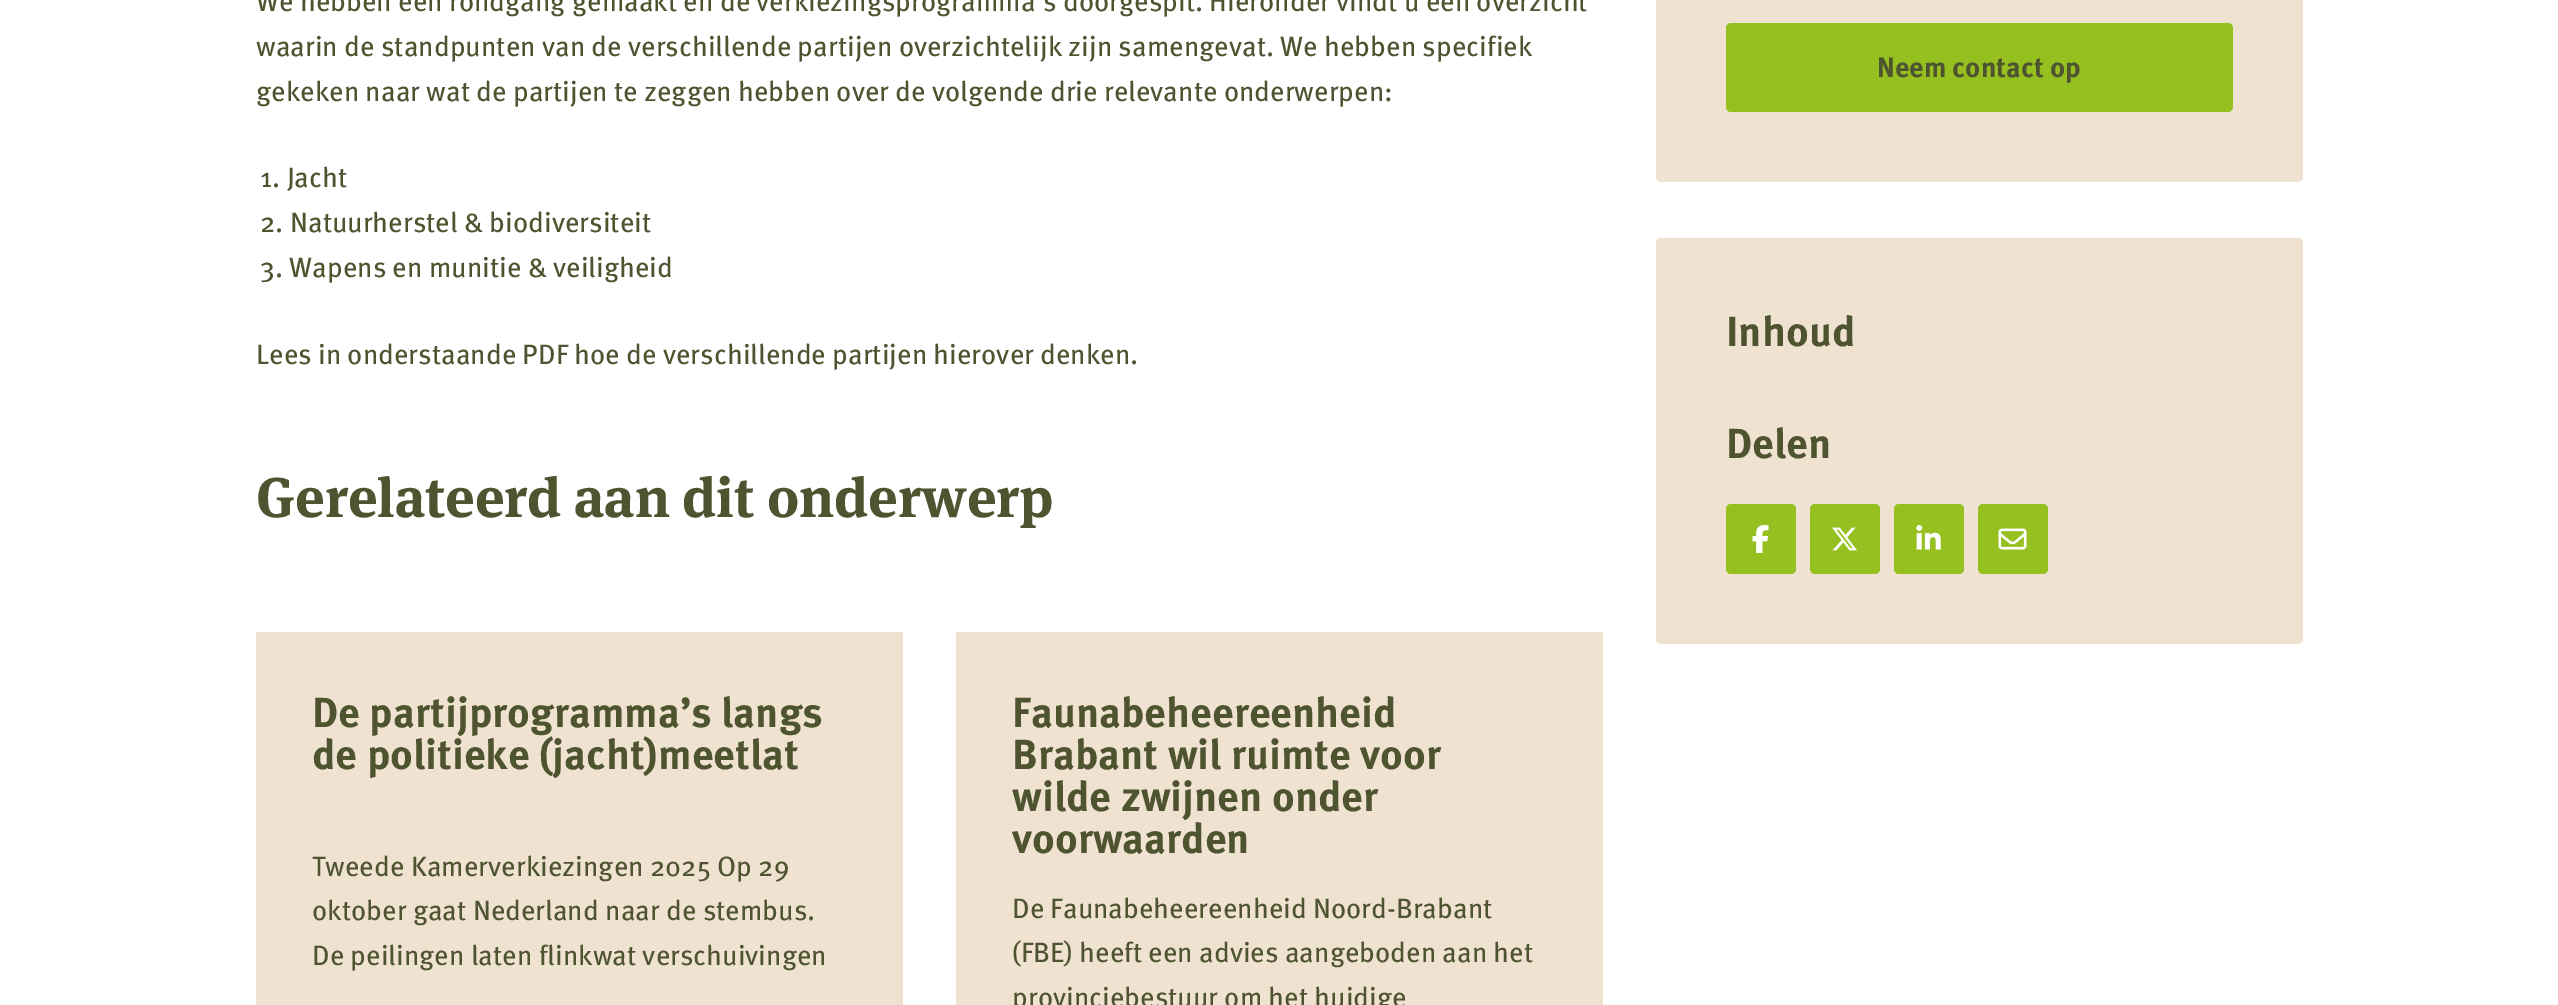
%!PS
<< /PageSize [2558 1005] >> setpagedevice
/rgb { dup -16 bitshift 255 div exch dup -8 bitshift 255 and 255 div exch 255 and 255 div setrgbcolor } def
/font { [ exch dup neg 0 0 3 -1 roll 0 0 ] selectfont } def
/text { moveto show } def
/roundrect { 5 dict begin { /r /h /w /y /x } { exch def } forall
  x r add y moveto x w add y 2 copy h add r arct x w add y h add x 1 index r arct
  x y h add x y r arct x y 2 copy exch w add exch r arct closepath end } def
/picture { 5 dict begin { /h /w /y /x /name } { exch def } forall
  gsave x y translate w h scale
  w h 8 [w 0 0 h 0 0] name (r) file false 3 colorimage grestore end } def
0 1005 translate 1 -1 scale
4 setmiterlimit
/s1 { /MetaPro-Regular 28 font 16#4E5430 rgb } def
/s2 { /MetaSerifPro-Bold 56 font 16#4E5430 rgb } def
/s3 { /MetaPro-Bold 42 font 16#4E5430 rgb } def
/s4 { /MetaPro-Bold 28 font 16#4E5430 rgb } def
16#FFFFFF rgb
0 0 2558 1005 rectfill
s1
(We hebben een rondgang gemaakt en de verkiezingsprogramma’s doorgespit. Hieronder vindt u een overzicht) 256 11 text
(waarin de standpunten van de verschillende partijen overzichtelijk zijn samengevat. We hebben specifiek) 256 56 text
(gekeken naar wat de partijen te zeggen hebben over de volgende drie relevante onderwerpen:) 256 101 text
(1. Jacht) 260 187 text
(2. Natuurherstel & biodiversiteit) 260 232 text
(3. Wapens en munitie & veiligheid) 260 277 text
(Lees in onderstaande PDF hoe de verschillende partijen hierover denken.) 256 364 text
s2
(Gerelateerd aan dit onderwerp) 256 517 text
16#F0E2D1 rgb
256 632 647 373 rectfill
s3
(De partijprogramma’s langs) 312 727 text
(de politieke \(jacht\)meetlat) 312 769 text
s1
(Tweede Kamerverkiezingen 2025 Op 29) 312 876 text
(oktober gaat Nederland naar de stembus.) 312 920 text
(De peilingen laten flinkwat verschuivingen) 312 965 text
16#F0E2D1 rgb
956 632 647 373 rectfill
s3
(Faunabeheereenheid) 1012 727 text
(Brabant wil ruimte voor) 1012 769 text
(wilde zwijnen onder) 1012 811 text
(voorwaarden) 1012 853 text
s1
(De Faunabeheereenheid Noord-Brabant) 1012 918 text
(\(FBE\) heeft een advies aangeboden aan het) 1012 962 text
(provinciebestuur om het huidige) 1012 1007 text
16#F0E2D1 rgb
1656 -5 647 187 5 roundrect fill
16#95C01F rgb
1726 23 507 89 5 roundrect fill
s4
(Neem contact op) 1877 77 text
16#F0E2D1 rgb
1656 238 647 406 5 roundrect fill
s3
(Inhoud) 1726 346 text
(Delen) 1726 458 text
16#95C01F rgb
1726 504 70 70 5 roundrect fill
(pic1.raw) 1752 525 17 28 picture
1810 504 70 70 5 roundrect fill
(pic2.raw) 1832 527 25 24 picture
1894 504 70 70 5 roundrect fill
(pic3.raw) 1916 525 25 25 picture
1978 504 70 70 5 roundrect fill
(pic4.raw) 1998 528 29 22 picture
showpage
